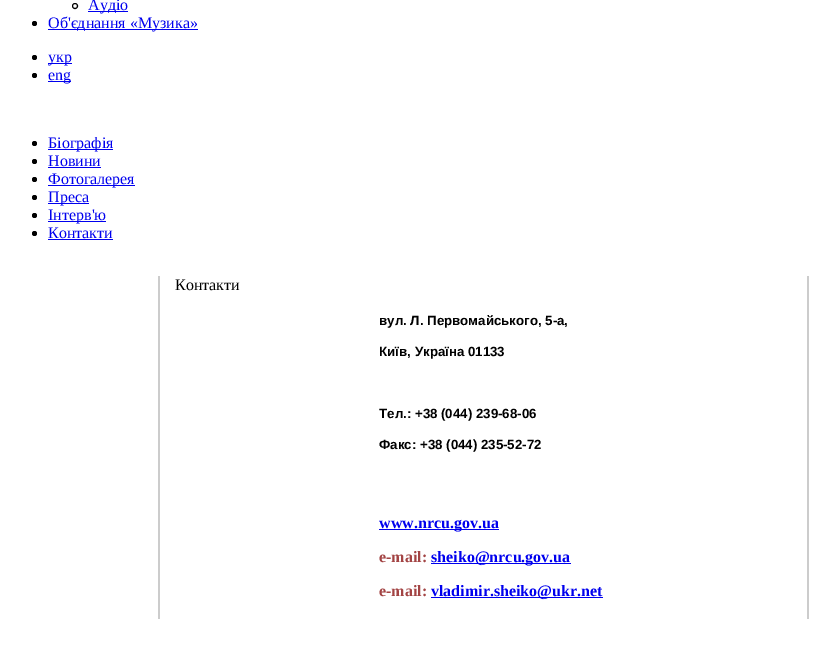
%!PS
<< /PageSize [832 664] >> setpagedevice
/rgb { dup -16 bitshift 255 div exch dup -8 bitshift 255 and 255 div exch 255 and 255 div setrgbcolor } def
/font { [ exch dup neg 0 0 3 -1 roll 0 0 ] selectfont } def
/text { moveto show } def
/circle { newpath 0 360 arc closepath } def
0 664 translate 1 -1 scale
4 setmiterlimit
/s1 { /LiberationSerif-Regular 16 font 16#0000EE rgb } def
/s2 { /LiberationSerif-Regular 16 font 16#000000 rgb } def
/s3 { /LiberationSans-Bold 13.3 font 16#000000 rgb } def
/s4 { /LiberationSerif-Bold 16 font 16#0000EE rgb } def
/s5 { /LiberationSerif-Bold 16 font 16#A34444 rgb } def
16#FFFFFF rgb
0 0 832 664 rectfill
16#000000 rgb
75 6 2.5 circle stroke
16#0000EE rgb
88 11 40 1 rectfill
s1
(Аудіо) 88 10 text
16#000000 rgb
34.5 23.5 2.5 circle fill
16#0000EE rgb
48 29 150 1 rectfill
(Об'єднання «Музика») 48 28 text
16#000000 rgb
34.5 57.5 2.5 circle fill
16#0000EE rgb
48 63 24 1 rectfill
(укр) 48 62 text
16#000000 rgb
34.5 75.5 2.5 circle fill
16#0000EE rgb
48 81 23 1 rectfill
(eng) 48 80 text
16#000000 rgb
34.5 143.5 2.5 circle fill
16#0000EE rgb
48 149 65 1 rectfill
(Біографія) 48 148 text
16#000000 rgb
34.5 161.5 2.5 circle fill
s1
(Новини) 48 166 text
48 167 53 1 rectfill
16#000000 rgb
34.5 179.5 2.5 circle fill
16#0000EE rgb
48 185 87 1 rectfill
(Фотогалерея) 48 184 text
16#000000 rgb
34.5 197.5 2.5 circle fill
16#0000EE rgb
48 203 41 1 rectfill
(Преса) 48 202 text
16#000000 rgb
34.5 215.5 2.5 circle fill
16#0000EE rgb
48 221 58 1 rectfill
(Інтерв'ю) 48 220 text
16#000000 rgb
34.5 233.5 2.5 circle fill
s1
(Контакти) 48 238 text
48 239 65 1 rectfill
16#CCCCCC rgb
158 276 2 343 rectfill
s2
(Контакти) 175 290 text
s3
(вул. Л. Первомайського, 5-а,) 379 325 text
(Київ, Україна 01133) 379 356 text
(Тел.: +38 \(044\) 239-68-06) 379 418 text
(Факс: +38 \(044\) 235-52-72) 379 449 text
16#0000EE rgb
379 529 120 1 rectfill
s4
(www.nrcu.gov.ua) 379 528 text
s5
(e-mail:) 379 562 text
16#0000EE rgb
431 563 140 1 rectfill
(sheiko@nrcu.gov.ua) 431 562 text
s5
(e-mail:) 379 596 text
16#0000EE rgb
431 597 172 1 rectfill
(vladimir.sheiko@ukr.net) 431 596 text
16#CCCCCC rgb
807 276 2 343 rectfill
showpage
